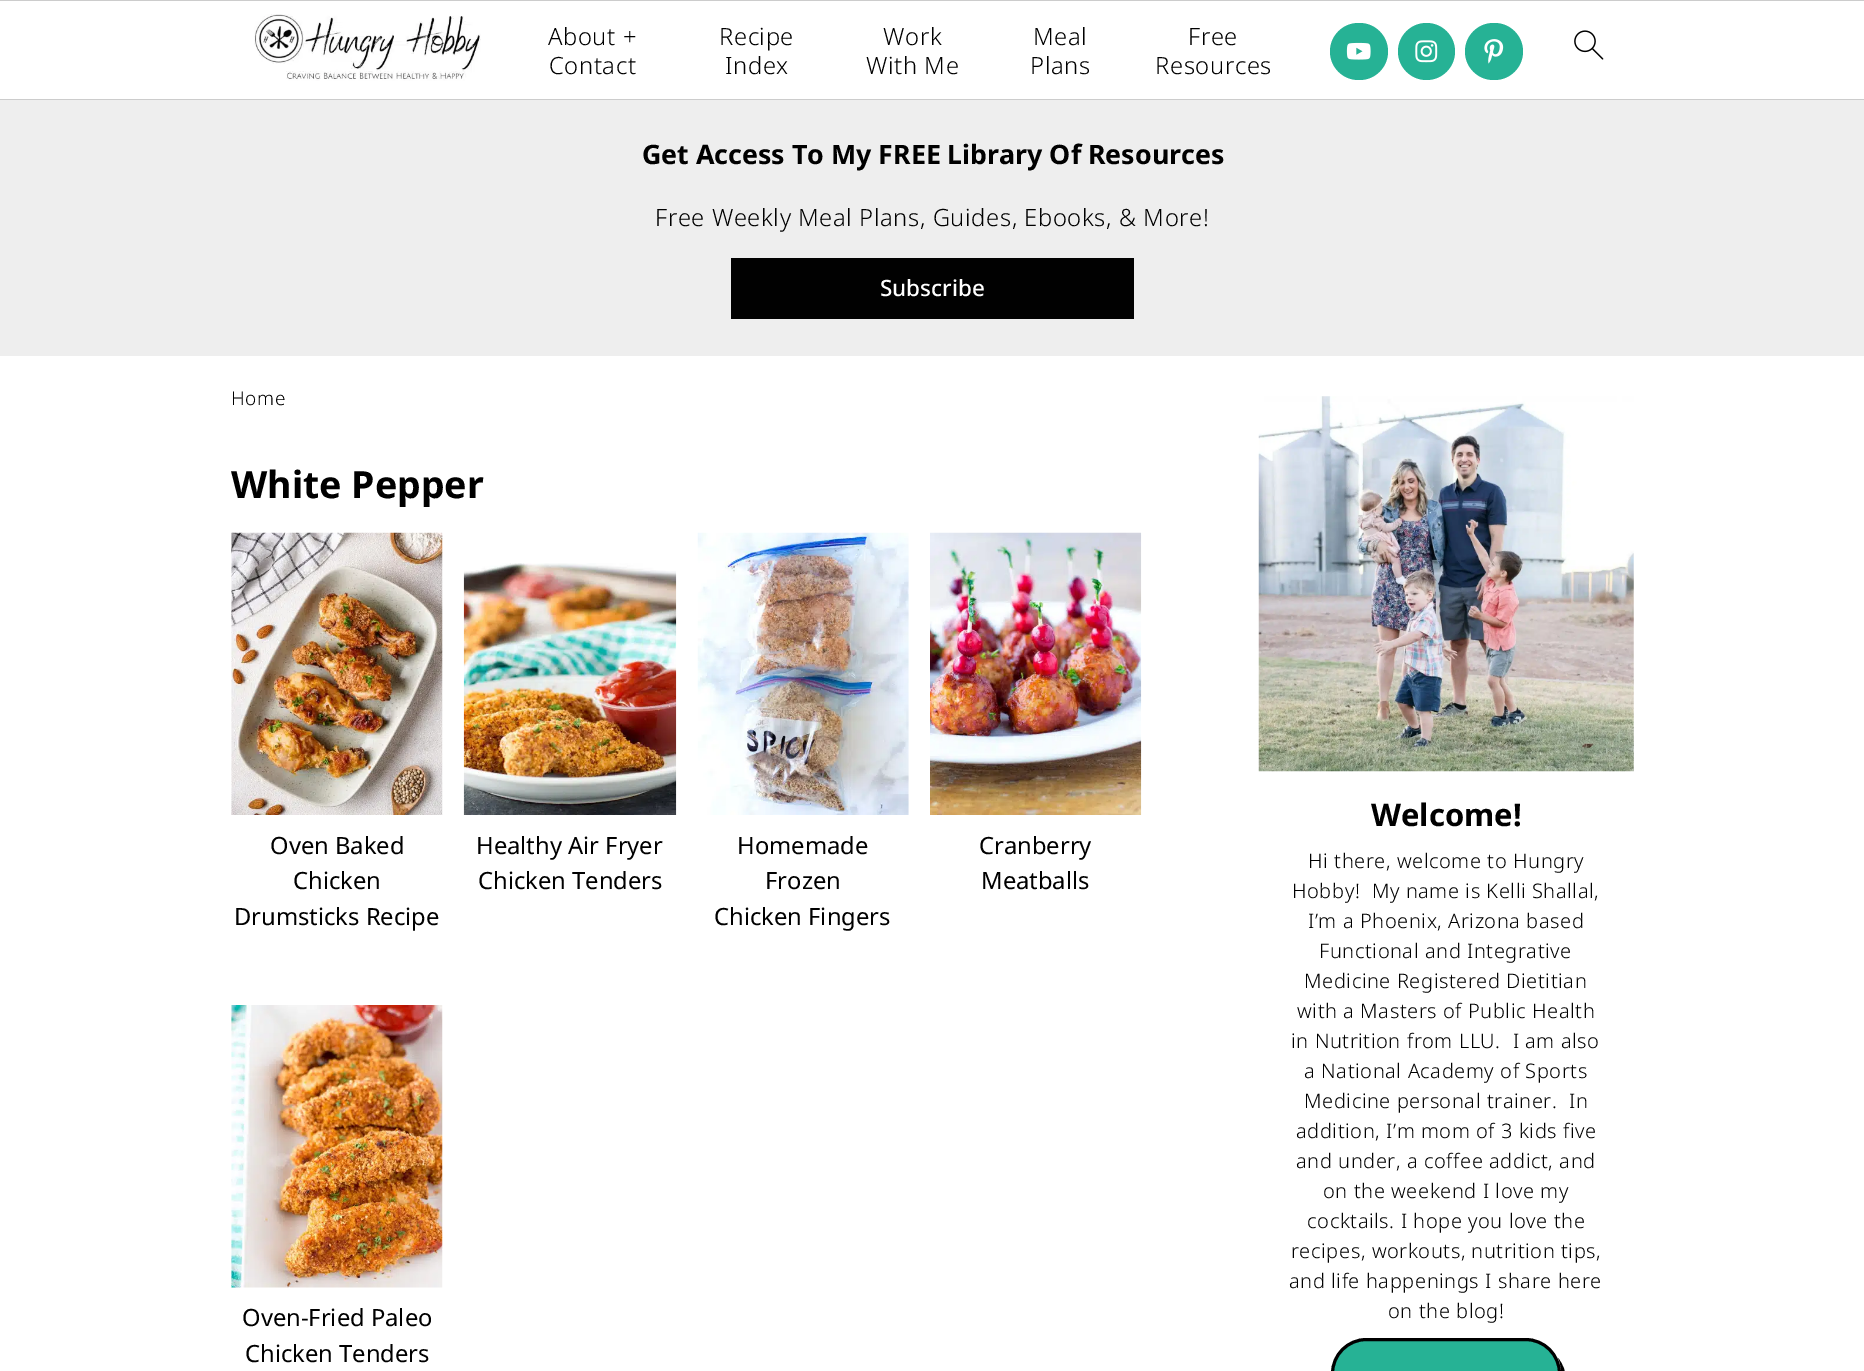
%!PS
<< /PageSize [1864 1371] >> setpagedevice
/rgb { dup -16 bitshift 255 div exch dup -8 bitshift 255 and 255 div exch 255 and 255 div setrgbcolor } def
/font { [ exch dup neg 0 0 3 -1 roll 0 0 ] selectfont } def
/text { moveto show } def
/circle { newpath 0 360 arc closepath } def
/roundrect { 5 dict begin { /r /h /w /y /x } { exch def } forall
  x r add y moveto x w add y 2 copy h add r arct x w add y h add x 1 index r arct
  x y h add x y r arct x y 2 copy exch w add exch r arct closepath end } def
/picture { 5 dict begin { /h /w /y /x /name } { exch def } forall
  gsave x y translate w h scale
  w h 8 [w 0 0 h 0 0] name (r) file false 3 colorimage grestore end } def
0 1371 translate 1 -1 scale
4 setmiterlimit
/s1 { /NotoSans-Bold 26.75 font 16#000000 rgb } def
/s2 { /NotoSans-Medium 22.5 font 16#FFFFFF rgb } def
/s3 { /NotoSans-Bold 37.5 font 16#000000 rgb } def
/s4 { /NotoSans-Regular 23.75 font 16#000000 rgb } def
/s5 { /NotoSans-Bold 31 font 16#000000 rgb } def
16#FFFFFF rgb
0 0 1864 1371 rectfill
16#CCCCCC rgb
0 0 1864 1 rectfill
0 99 1864 1 rectfill
(pic1.raw) 254 14 227 67 picture
/NotoSans-Light 23.75 font
16#000000 rgb
548 45 moveto 0.6 0 (About +) ashow
549 74 moveto 0.6 0 (Contact) ashow
719 45 moveto 0.6 0 (Recipe) ashow
725 74 moveto 0.6 0 (Index) ashow
883 45 moveto 0.6 0 (Work) ashow
866 74 moveto 0.6 0 (With Me) ashow
1033 45 moveto 0.6 0 (Meal) ashow
1030 74 moveto 0.6 0 (Plans) ashow
1188 45 moveto 0.6 0 (Free) ashow
1155 74 moveto 0.6 0 (Resources) ashow
16#26B295 rgb
1330 23 58 57 28.5 roundrect fill
(pic2.raw) 1346 42 25 18 picture
1426.5 51.5 28.5 circle fill
(pic3.raw) 1415 40 23 23 picture
1465 23 58 57 28.5 roundrect fill
(pic4.raw) 1484 39 20 25 picture
(pic5.raw) 1574 30 30 30 picture
16#EEEEEE rgb
0 100 1864 256 rectfill
s1
(Get Access To My FREE Library Of Resources) 642 164 text
/NotoSans-Light 23.75 font
655 226 moveto 0.6 0 (Free Weekly Meal Plans, Guides, Ebooks, & More!) ashow
16#010101 rgb
731 258 403 61 rectfill
s2
(Subscribe) 880 296 text
/NotoSans-Light 19 font
16#000000 rgb
231 405 moveto 0.6 0 (Home) ashow
s3
(White Pepper) 231 498 text
(pic6.raw) 231 532 212 283 picture
s4
(Oven Baked) 270 854 text
(Chicken) 293 889 text
(Drumsticks Recipe) 234 925 text
(pic7.raw) 463 563 214 252 picture
(Healthy Air Fryer) 476 854 text
(Chicken Tenders) 478 889 text
(pic8.raw) 697 532 212 283 picture
(Homemade) 737 854 text
(Frozen) 765 889 text
(Chicken Fingers) 714 925 text
(pic9.raw) 930 532 212 283 picture
(Cranberry) 979 854 text
(Meatballs) 981 889 text
(pic10.raw) 231 1005 212 283 picture
(Oven-Fried Paleo) 242 1326 text
(Chicken Tenders) 245 1362 text
(pic11.raw) 1258 396 376 376 picture
s5
(Welcome!) 1371 826 text
/NotoSans-Light 20 font
1308 868 moveto 0.6 0 (Hi there, welcome to Hungry) ashow
1292 898 moveto 0.6 0 (Hobby!  My name is Kelli Shallal,) ashow
1308 928 moveto 0.6 0 (I’m a Phoenix, Arizona based) ashow
1319 958 moveto 0.6 0 (Functional and Integrative) ashow
1304 988 moveto 0.6 0 (Medicine Registered Dietitian) ashow
1297 1018 moveto 0.6 0 (with a Masters of Public Health) ashow
1291 1048 moveto 0.6 0 (in Nutrition from LLU.  I am also) ashow
1304 1078 moveto 0.6 0 (a National Academy of Sports) ashow
1304 1108 moveto 0.6 0 (Medicine personal trainer.  In) ashow
1296 1138 moveto 0.6 0 (addition, I’m mom of 3 kids five) ashow
1296 1168 moveto 0.6 0 (and under, a coffee addict, and) ashow
1323 1198 moveto 0.6 0 (on the weekend I love my) ashow
1307 1228 moveto 0.6 0 (cocktails. I hope you love the) ashow
1291 1258 moveto 0.6 0 (recipes, workouts, nutrition tips,) ashow
1289 1288 moveto 0.6 0 (and life happenings I share here) ashow
1388 1318 moveto 0.6 0 (on the blog!) ashow
1340 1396 moveto 1345 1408 1357 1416 1372 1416 curveto 1530 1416 lineto 1550 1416 1566 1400 1566 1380 curveto 1566 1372 1563 1364 1558 1358 curveto 1560 1362 1561 1368 1561 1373 curveto 1561 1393 1545 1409 1526 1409 curveto 1367 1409 lineto 1356 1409 1346 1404 1340 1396 curveto closepath fill
16#26B295 rgb
1332.5 1339.5 227 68 34 roundrect gsave fill grestore
16#000000 rgb
3 setlinewidth
stroke
showpage
